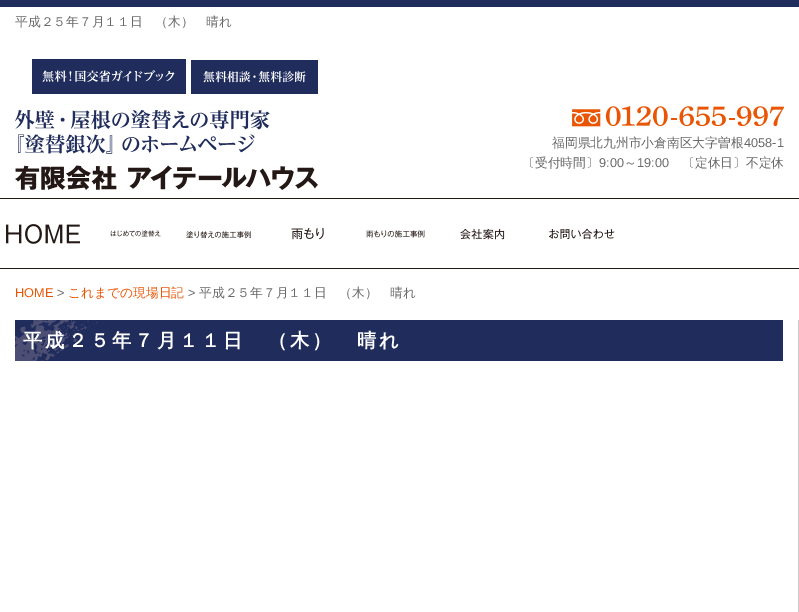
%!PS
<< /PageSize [799 612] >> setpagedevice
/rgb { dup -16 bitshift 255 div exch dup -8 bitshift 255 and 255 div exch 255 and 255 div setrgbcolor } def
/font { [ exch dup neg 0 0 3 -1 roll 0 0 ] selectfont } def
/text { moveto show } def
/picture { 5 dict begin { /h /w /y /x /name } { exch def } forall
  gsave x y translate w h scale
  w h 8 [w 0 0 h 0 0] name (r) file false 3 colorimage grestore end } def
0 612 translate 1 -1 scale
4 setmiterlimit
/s1 { /WenQuanYiZenHei-Medium 12.75 font 16#696969 rgb } def
/s2 { /LiberationSans-Regular 12.75 font 16#696969 rgb } def
/s3 { /LiberationSans-Regular 12.75 font 16#EA5504 rgb } def
/s4 { /WenQuanYiZenHei-Medium 12.75 font 16#EA5504 rgb } def
16#FFFFFF rgb
0 0 799 612 rectfill
16#1F2C5C rgb
0 0 799 7 rectfill
s1
(平成２５年７月１１日　（木）　晴れ) 15 26 text
(pic1.raw) 32 59 154 35 picture
(pic2.raw) 191 60 127 34 picture
(pic3.raw) 15 110 303 80 picture
(pic4.raw) 572 106 212 21 picture
(福岡県北九州市小倉南区大字曽根) 552 147 text
s2
(4058-1) 744 147 text
s1
(〔受付時間〕) 522 167 text
s2
(9:00) 599 167 text
s1
(～) 624 167 text
s2
(19:00) 637 167 text
s1
(〔定休日〕不定休) 682 167 text
16#231815 rgb
0 198 799 1 rectfill
0 268 799 1 rectfill
(pic5.raw) 6 224 74 20 picture
(pic6.raw) 110 230 51 7 picture
(pic7.raw) 186 231 65 8 picture
(pic8.raw) 291 228 33 12 picture
(pic9.raw) 366 230 59 8 picture
(pic10.raw) 460 229 45 11 picture
(pic11.raw) 549 228 66 12 picture
s3
(HOME) 15 297 text
s2
(>) 57 297 text
s4
(これまでの現場日記) 68 297 text
s2
(>) 188 297 text
s1
(平成２５年７月１１日　（木）　晴れ) 199 297 text
16#C9CACA rgb
798 320 1 292 rectfill
16#1F2C5C rgb
98 320 685 41 rectfill
(pic12.raw) 15 320 83 41 picture
/WenQuanYiZenHei-Bold 19.25 font
16#FFFFFF rgb
23 347 moveto 3 0 (平成２５年７月１１日　（木）　晴れ) ashow
showpage
